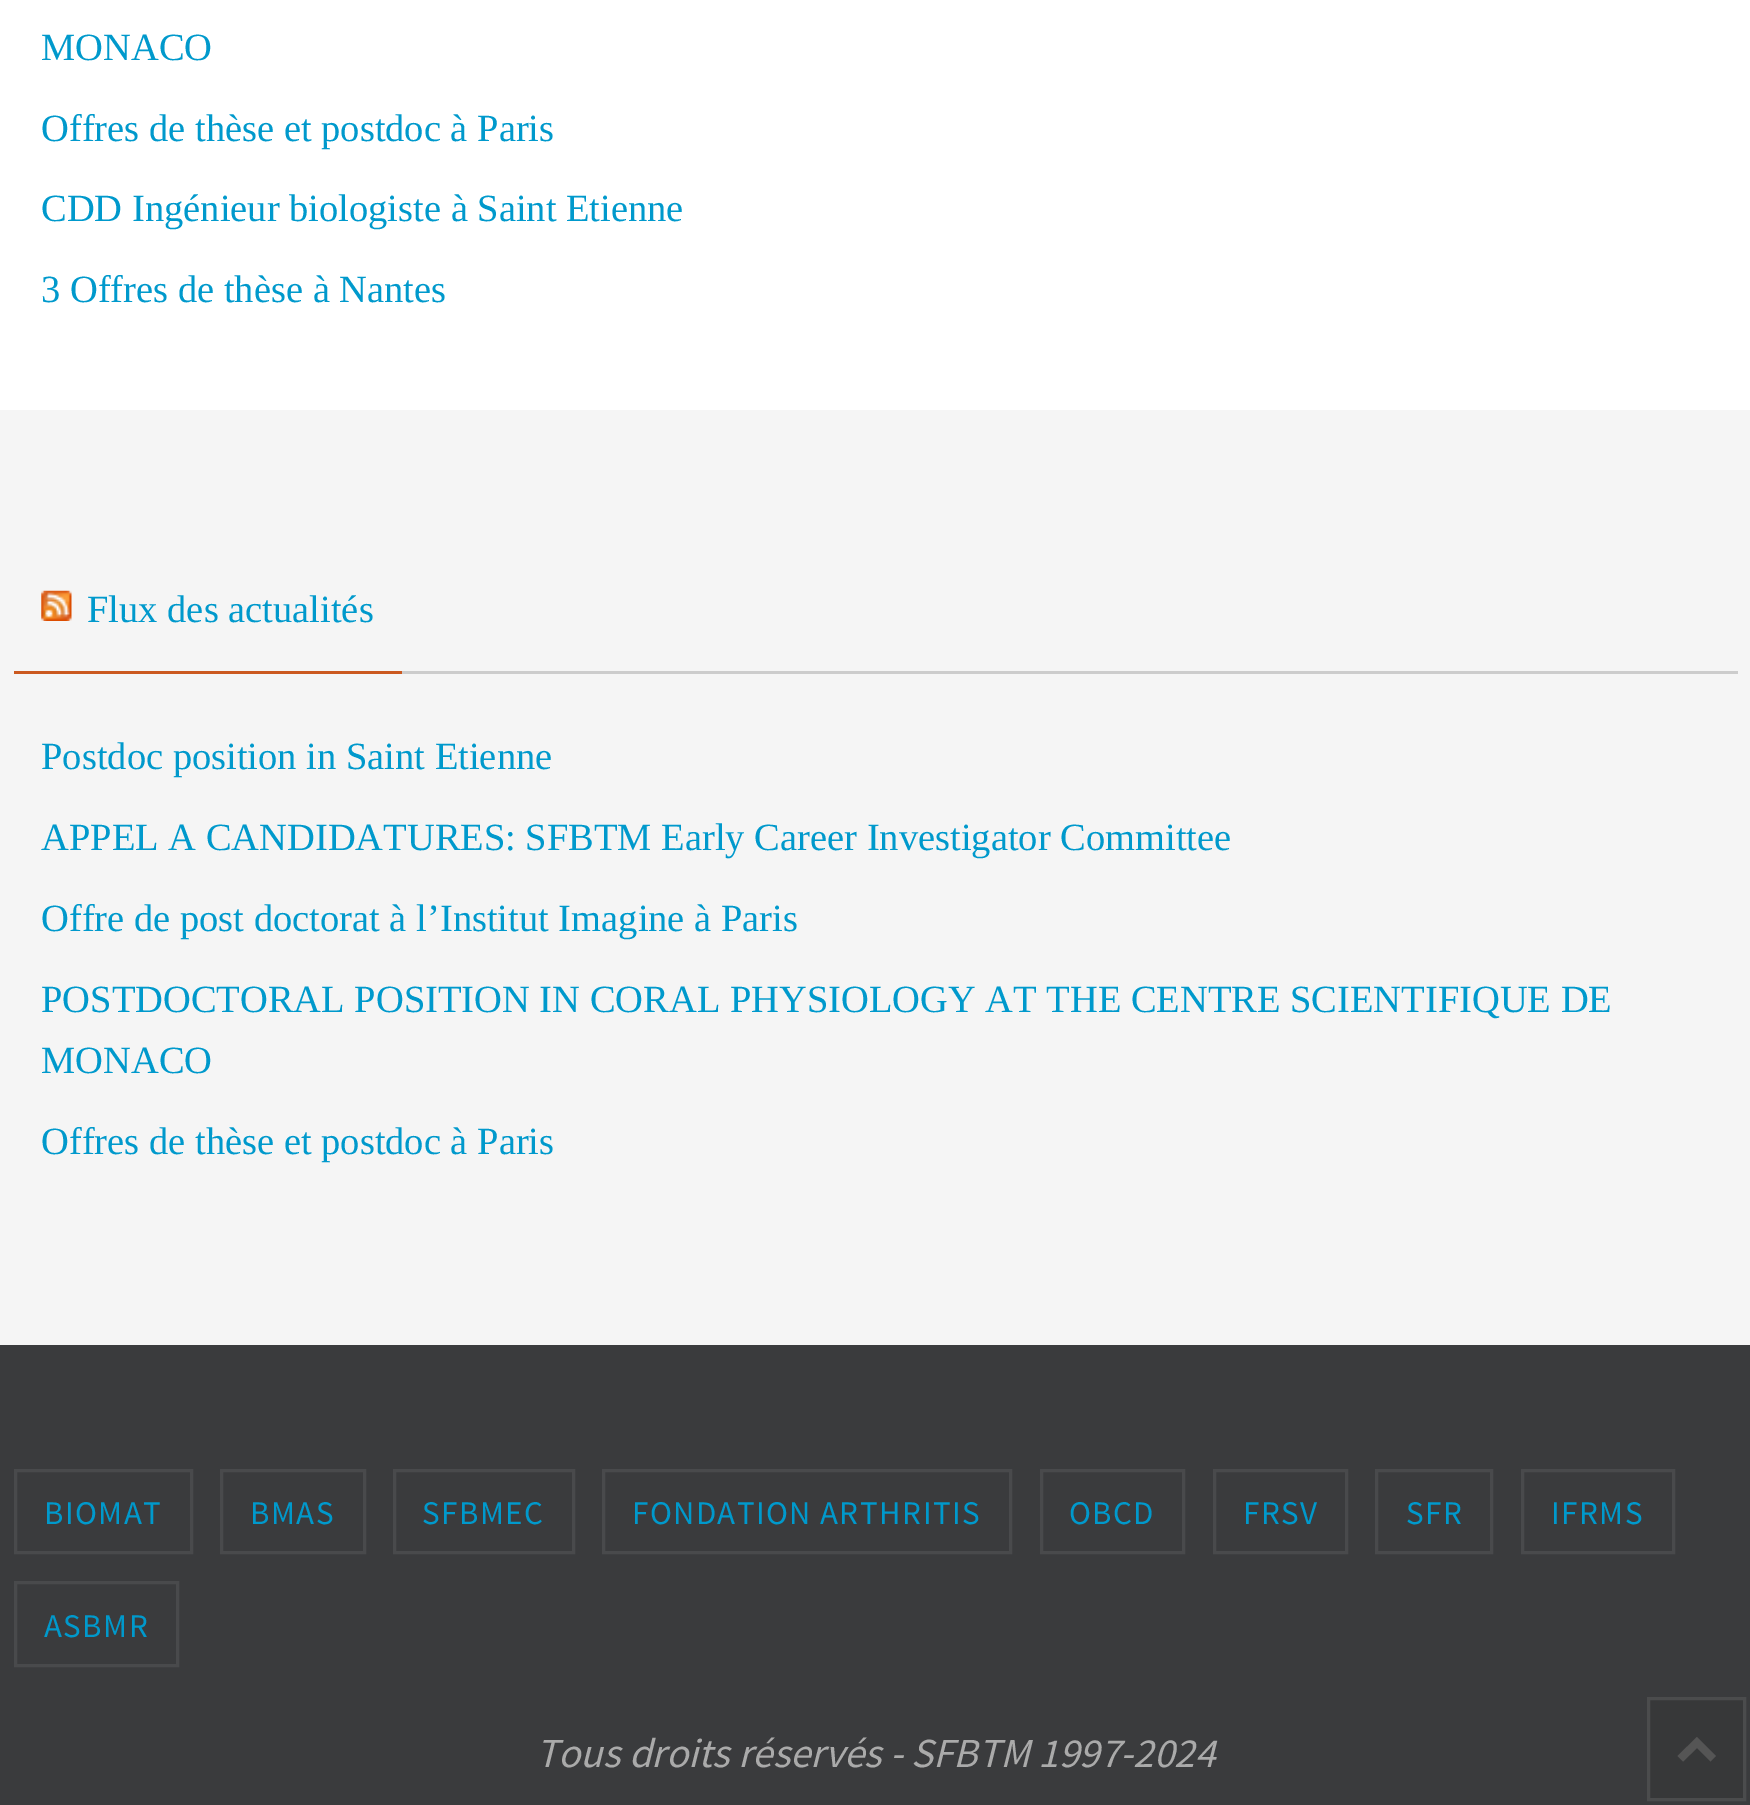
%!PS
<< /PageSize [1750 1805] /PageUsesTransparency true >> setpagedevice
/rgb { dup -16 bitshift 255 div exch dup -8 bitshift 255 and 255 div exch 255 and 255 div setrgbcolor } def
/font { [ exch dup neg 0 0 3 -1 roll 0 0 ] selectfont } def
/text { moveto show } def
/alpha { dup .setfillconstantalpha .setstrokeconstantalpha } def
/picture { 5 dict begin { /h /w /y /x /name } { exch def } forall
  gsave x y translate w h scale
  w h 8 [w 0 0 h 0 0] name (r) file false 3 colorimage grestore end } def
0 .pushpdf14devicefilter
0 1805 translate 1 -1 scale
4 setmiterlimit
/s1 { /LiberationSerif-Regular 38.5 font 16#0099CC rgb } def
/s2 { /SourceSansPro-Italic 41.25 font 16#AAAAAA rgb } def
16#FFFFFF rgb
0 0 1750 1805 rectfill
s1
(MONACO) 41 60 text
(Offres de thèse et postdoc à Paris) 41 141 text
(CDD Ingénieur biologiste à Saint Etienne) 41 221 text
(3 Offres de thèse à Nantes) 41 302 text
16#F5F5F5 rgb
0 410 1750 935 rectfill
16#CCCCCC rgb
402 671 1336 3 rectfill
16#CB5920 rgb
14 671 388 3 rectfill
(pic1.raw) 41 590 31 31 picture
s1
(Flux des actualités) 87 622 text
(Postdoc position in Saint Etienne) 41 769 text
(APPEL A CANDIDATURES: SFBTM Early Career Investigator Committee) 41 850 text
(Offre de post doctorat à l’Institut Imagine à Paris) 41 931 text
(POSTDOCTORAL POSITION IN CORAL PHYSIOLOGY AT THE CENTRE SCIENTIFIQUE DE) 41 1012 text
(MONACO) 41 1073 text
(Offres de thèse et postdoc à Paris) 41 1154 text
16#3A3B3D rgb
0 1345 1750 460 rectfill
16#494A4C rgb
3 setlinewidth
15.5 1470.5 176 82 rectstroke
/SourceSansPro-Regular 33 font
16#0099CC rgb
44 1524 moveto 1.4 0 (BIOMAT) ashow
16#494A4C rgb
221.5 1470.5 143 82 rectstroke
16#0099CC rgb
250 1524 moveto 1.4 0 (BMAS) ashow
16#494A4C rgb
394.5 1470.5 179 82 rectstroke
16#0099CC rgb
422 1524 moveto 1.4 0 (SFBMEC) ashow
16#494A4C rgb
603.5 1470.5 407 82 rectstroke
16#0099CC rgb
632 1524 moveto 1.4 0 (FONDATION ARTHRITIS) ashow
16#494A4C rgb
1041.5 1470.5 142 82 rectstroke
16#0099CC rgb
1069 1524 moveto 1.4 0 (OBCD) ashow
16#494A4C rgb
1214.5 1470.5 132 82 rectstroke
16#0099CC rgb
1243 1524 moveto 1.4 0 (FRSV) ashow
16#494A4C rgb
1376.5 1470.5 115 82 rectstroke
16#0099CC rgb
1406 1524 moveto 1.4 0 (SFR) ashow
16#494A4C rgb
1522.5 1470.5 151 82 rectstroke
16#0099CC rgb
1551 1524 moveto 1.4 0 (IFRMS) ashow
16#494A4C rgb
15.5 1582.5 162 83 rectstroke
16#0099CC rgb
44 1637 moveto 1.4 0 (ASBMR) ashow
s2
(Tous droits réservés - SFBTM 1997-2024) 536 1767 text
0.06 alpha
16#000000 rgb
1647 1697 99 104 rectfill
0.1 alpha
16#FFFFFF rgb
1648.5 1698.5 96 101 rectstroke
1 alpha
16#555555 rgb
1677.5 1756 moveto 1697 1737 lineto 1716 1756 lineto 1710.5 1761.5 lineto 1697 1748 lineto 1683 1761.5 lineto closepath fill
.poppdf14devicefilter showpage
